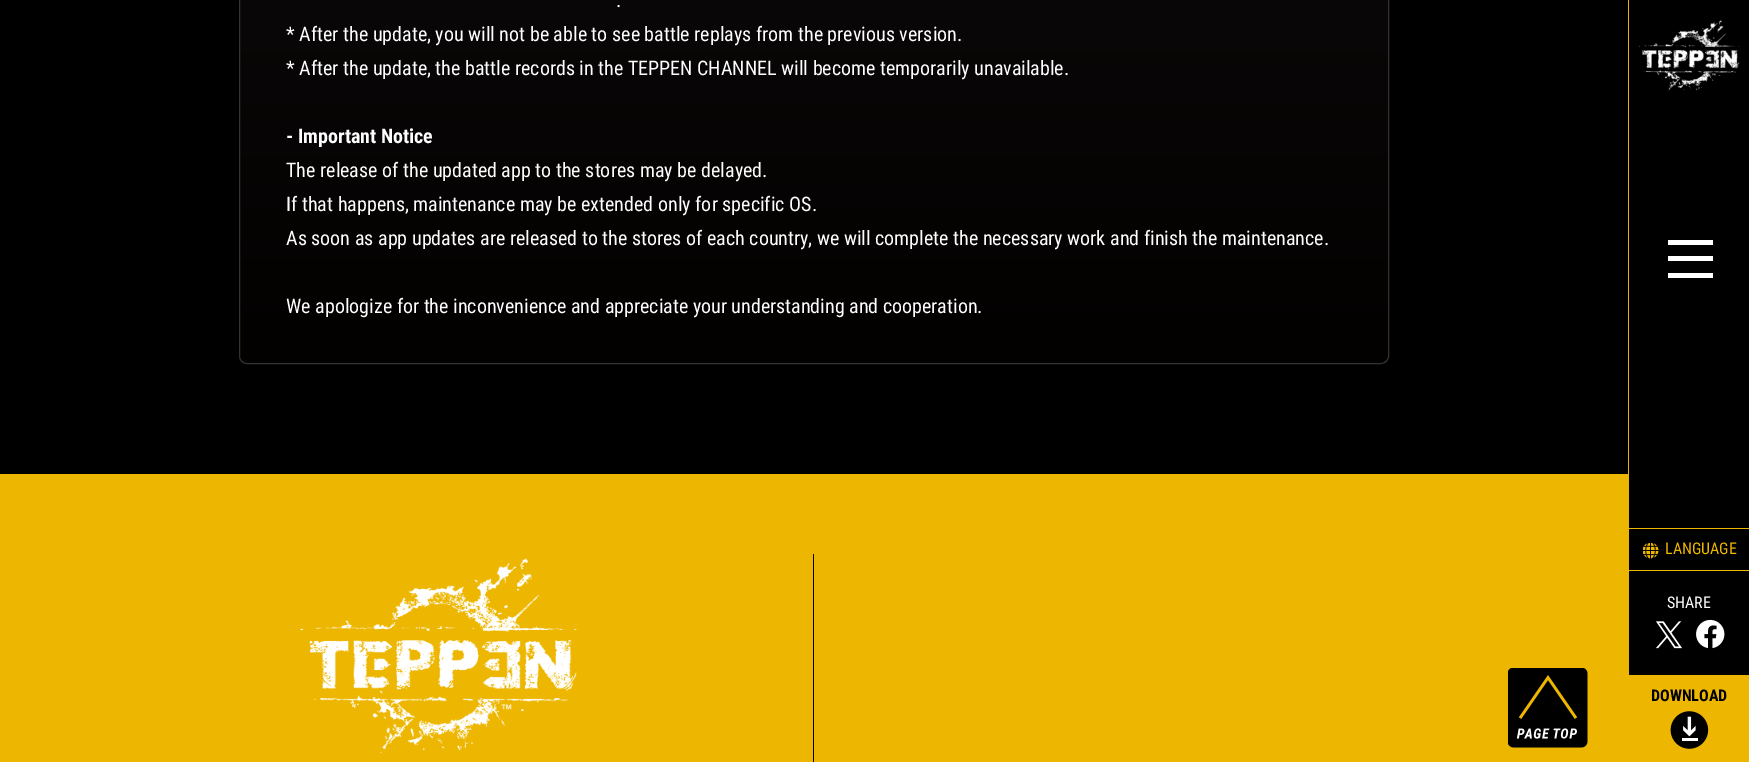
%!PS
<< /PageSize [1749 762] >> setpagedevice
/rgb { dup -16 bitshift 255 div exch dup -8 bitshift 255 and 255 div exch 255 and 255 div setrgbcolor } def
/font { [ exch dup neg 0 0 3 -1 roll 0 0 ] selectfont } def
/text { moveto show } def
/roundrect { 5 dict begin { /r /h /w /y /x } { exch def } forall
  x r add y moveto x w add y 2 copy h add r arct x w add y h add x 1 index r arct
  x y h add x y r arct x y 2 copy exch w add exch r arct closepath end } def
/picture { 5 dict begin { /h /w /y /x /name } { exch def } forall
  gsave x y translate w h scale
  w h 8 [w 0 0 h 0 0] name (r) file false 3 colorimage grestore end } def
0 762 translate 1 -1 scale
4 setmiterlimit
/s1 { /RobotoCondensed-Regular 20 font 16#FFFFFF rgb } def
/s2 { /RobotoCondensed-Bold 20 font 16#FFFFFF rgb } def
/s3 { /RobotoCondensed-Regular 16 font 16#EDB600 rgb } def
/s4 { /RobotoCondensed-Regular 16 font 16#FFFFFF rgb } def
/s5 { /RobotoCondensed-Bold 16 font 16#000000 rgb } def
16#000000 rgb
0 0 1749 762 rectfill
gsave
239 -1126 1150 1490 8 roundrect clip newpath
gsave 239 0 moveto 1389 0 lineto 1389 363 lineto 239 363 lineto closepath clip newpath
<< /ShadingType 2 /ColorSpace /DeviceRGB /Coords [814 363 814 -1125] /Extend [true true] /Function << /FunctionType 2 /Domain [0 1] /C0 [0.012 0 0] /C1 [0.106 0.106 0.106] /N 1 >> >> shfill grestore
grestore
16#333333 rgb
239.5 -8.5 1149 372 7.5 roundrect stroke
s1
(.) 616 7 text
(* After the update, you will not be able to see battle replays from the previous version.) 286 41 text
(* After the update, the battle records in the TEPPEN CHANNEL will become temporarily unavailable.) 286 75 text
s2
(- Important Notice) 286 143 text
s1
(The release of the updated app to the stores may be delayed.) 286 177 text
(If that happens, maintenance may be extended only for specific OS.) 286 211 text
(As soon as app updates are released to the stores of each country, we will complete the necessary work and finish the maintenance.) 286 245 text
(We apologize for the inconvenience and appreciate your understanding and cooperation.) 286 313 text
16#EDB600 rgb
0 474 1628 288 rectfill
16#000000 rgb
813 554 1 208 rectfill
(pic1.raw) 300 558 278 196 picture
(pic2.raw) 1508 668 80 80 picture
16#EDB600 rgb
1628 0 1 762 rectfill
(pic3.raw) 1638 20 102 71 picture
16#FFFFFF rgb
1668 240 45 5 rectfill
1668 256 45 5 rectfill
1668 273 45 5 rectfill
16#EDB600 rgb
1629 528 120 1 rectfill
1629 570 120 1 rectfill
(pic4.raw) 1643 543 16 16 picture
s3
(LANGUAGE) 1665 554 text
s4
(SHARE) 1667 608 text
(pic5.raw) 1656 621 26 28 picture
(pic6.raw) 1696 619 29 30 picture
16#EDB600 rgb
1629 675 120 87 rectfill
s5
(DOWNLOAD) 1651 701 text
(pic7.raw) 1670 711 39 38 picture
showpage
